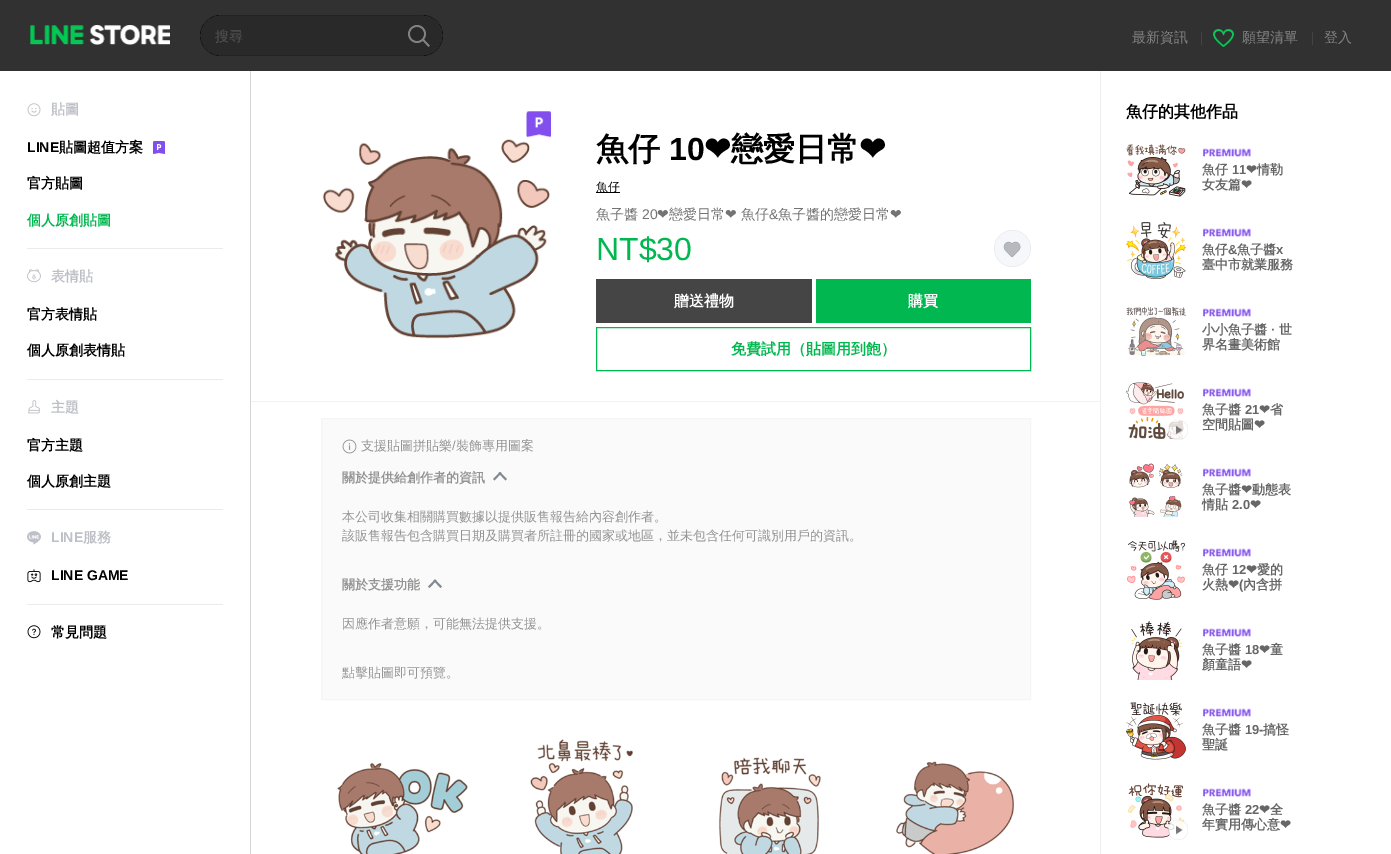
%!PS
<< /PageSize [1391 854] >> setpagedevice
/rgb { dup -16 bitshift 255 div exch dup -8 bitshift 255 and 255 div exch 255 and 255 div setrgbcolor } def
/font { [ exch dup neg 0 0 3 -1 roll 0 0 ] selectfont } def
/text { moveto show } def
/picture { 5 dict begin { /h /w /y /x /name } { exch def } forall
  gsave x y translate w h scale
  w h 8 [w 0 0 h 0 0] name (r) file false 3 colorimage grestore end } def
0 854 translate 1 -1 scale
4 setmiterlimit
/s1 { /WenQuanYiZenHei-Medium 14 font 16#545454 rgb } def
/s2 { /WenQuanYiZenHei-Medium 14 font 16#848484 rgb } def
/s3 { /WenQuanYiZenHei-Bold 14 font 16#BEC0C7 rgb } def
/s4 { /LiberationSans-Bold 14 font 16#000000 rgb } def
/s5 { /WenQuanYiZenHei-Bold 14 font 16#000000 rgb } def
/s6 { /WenQuanYiZenHei-Bold 14 font 16#00B84F rgb } def
/s7 { /LiberationSans-Bold 14 font 16#BEC0C7 rgb } def
/s8 { /WenQuanYiZenHei-Bold 32 font 16#000000 rgb } def
/s9 { /LiberationSans-Bold 32 font 16#000000 rgb } def
/s10 { /DejaVuSans-Bold 32 font 16#000000 rgb } def
/s11 { /WenQuanYiZenHei-Medium 12 font 16#000000 rgb } def
/s12 { /WenQuanYiZenHei-Medium 14 font 16#737373 rgb } def
/s13 { /LiberationSans-Regular 14 font 16#737373 rgb } def
/s14 { /DejaVuSans-Regular 14 font 16#737373 rgb } def
/s15 { /LiberationSans-Regular 32 font 16#00B84F rgb } def
/s16 { /WenQuanYiZenHei-Bold 15 font 16#FFFFFF rgb } def
/s17 { /WenQuanYiZenHei-Bold 15 font 16#00B84F rgb } def
/s18 { /WenQuanYiZenHei-Medium 13 font 16#949494 rgb } def
/s19 { /LiberationSans-Regular 13 font 16#949494 rgb } def
/s20 { /WenQuanYiZenHei-Bold 13 font 16#949494 rgb } def
/s21 { /WenQuanYiZenHei-Bold 16 font 16#000000 rgb } def
/s22 { /WenQuanYiZenHei-Bold 13 font 16#666666 rgb } def
/s23 { /LiberationSans-Bold 13 font 16#666666 rgb } def
/s24 { /DejaVuSans-Bold 13 font 16#666666 rgb } def
16#FFFFFF rgb
0 0 1391 854 rectfill
16#313131 rgb
0 0 1391 71 rectfill
(pic1.raw) 30 25 140 20 picture
(pic2.raw) 200 15 243 41 picture
s1
(搜尋) 215 41 text
(pic3.raw) 408 25 22 22 picture
s2
(最新資訊) 1132 42 text
16#444444 rgb
1201 32 1 13 rectfill
(pic4.raw) 1213 29 21 18 picture
s2
(願望清單) 1242 42 text
16#444444 rgb
1312 32 1 13 rectfill
s2
(登入) 1324 42 text
(pic5.raw) 27 103 14 14 picture
s3
(貼圖) 51 114 text
s4
(LINE) 27 152 text
s5
(貼圖超值方案) 59 152 text
(pic6.raw) 153 141 12 13 picture
(官方貼圖) 27 188 text
s6
(個人原創貼圖) 27 225 text
16#EBEBEB rgb
27 248 196 1 rectfill
(pic7.raw) 27 269 14 14 picture
s3
(表情貼) 51 281 text
s5
(官方表情貼) 27 319 text
(個人原創表情貼) 27 355 text
16#EBEBEB rgb
27 379 196 1 rectfill
(pic8.raw) 28 400 12 14 picture
s3
(主題) 51 412 text
s5
(官方主題) 27 450 text
(個人原創主題) 27 486 text
16#EBEBEB rgb
27 509 196 1 rectfill
(pic9.raw) 27 531 14 14 picture
s7
(LINE) 51 542 text
s3
(服務) 83 542 text
(pic10.raw) 27 569 14 14 picture
s4
(LINE GAME) 51 580 text
16#EBEBEB rgb
27 604 196 1 rectfill
(pic11.raw) 27 625 14 14 picture
s5
(常見問題) 51 637 text
16#D6D6D6 rgb
250 71 1 783 rectfill
(pic12.raw) 526 111 25 27 picture
(pic13.raw) 322 139 228 200 picture
s8
(魚仔) 596 160 text
s9
(10) 669 160 text
s10
(❤) 704 160 text
s8
(戀愛日常) 731 160 text
s10
(❤) 859 160 text
596 192 24 1 rectfill
s11
(魚仔) 596 191 text
s12
(魚子醬) 596 219 text
s13
(20) 642 219 text
s14
(❤) 657 219 text
s12
(戀愛日常) 669 219 text
s14
(❤) 725 219 text
s12
(魚仔) 741 219 text
s13
(&) 769 219 text
s12
(魚子醬的戀愛日常) 778 219 text
s14
(❤) 890 219 text
s15
(NT$30) 596 260 text
(pic14.raw) 994 230 37 37 picture
16#454545 rgb
596 279 216 44 rectfill
s16
(贈送禮物) 674 306 text
16#00B84F rgb
816 279 215 44 rectfill
s16
(購買) 908 306 text
16#00B84F rgb
596.5 327.5 434 43 rectstroke
(免費試用（貼圖用到飽）) 731 354 text
16#F2F2F2 rgb
251 401 850 1 rectfill
16#EFEFEF rgb
1100 71 1 783 rectfill
16#FAFAFA rgb
321.5 418.5 moveto 1030.5 418.5 lineto 1030.5 699.5 lineto 321.5 699.5 lineto closepath gsave fill grestore
16#F5F5F5 rgb
stroke
(pic15.raw) 342 439 15 15 picture
s18
(支援貼圖拼貼樂 裝飾專用圖案) 361 450 text
s19
(/) 452 450 text
s20
(關於提供給創作者的資訊) 342 482 text
16#848A94 rgb
493 479 moveto 500 472 lineto 501.5 473 lineto 494.5 480.5 lineto closepath fill
498.5 473 moveto 500 472 lineto 507 479 lineto 505.5 480.5 lineto closepath fill
s18
(本公司收集相關購買數據以提供販售報告給內容創作者。) 342 521 text
(該販售報告包含購買日期及購買者所註冊的國家或地區，並未包含任何可識別用戶的資訊。) 342 540 text
s20
(關於支援功能) 342 589 text
16#848A94 rgb
428 586.5 moveto 435 579.5 lineto 436.5 580.5 lineto 429.5 588 lineto closepath fill
433.5 580.5 moveto 435 579.5 lineto 442 586.5 lineto 440.5 588 lineto closepath fill
s18
(因應作者意願，可能無法提供支援。) 342 628 text
(點擊貼圖即可預覽。) 342 677 text
(pic16.raw) 337 762 131 92 picture
(pic17.raw) 530 739 103 115 picture
(pic18.raw) 719 757 102 97 picture
(pic19.raw) 896 761 118 93 picture
s21
(魚仔的其他作品) 1126 117 text
(pic20.raw) 1126 144 60 53 picture
(pic21.raw) 1202 148 49 9 picture
s22
(魚仔) 1202 174 text
s23
(11) 1232 174 text
s24
(❤) 1246 174 text
s22
(情勒) 1257 174 text
(女友篇) 1202 189 text
s24
(❤) 1241 189 text
(pic22.raw) 1126 221 60 58 picture
(pic21.raw) 1202 228 49 9 picture
s22
(魚仔) 1202 254 text
s23
(&) 1228 254 text
s22
(魚子醬) 1237 254 text
s23
(x) 1276 254 text
s22
(臺中市就業服務) 1202 269 text
(pic23.raw) 1126 306 60 50 picture
(pic21.raw) 1202 308 49 9 picture
(小小魚子醬) 1202 334 text
s23
(·) 1271 334 text
s22
(世) 1279 334 text
(界名畫美術館) 1202 349 text
(pic24.raw) 1126 382 58 57 picture
(pic25.raw) 1168 420 20 20 picture
(pic21.raw) 1202 388 49 9 picture
(魚子醬) 1202 414 text
s23
(21) 1245 414 text
s24
(❤) 1259 414 text
s22
(省) 1270 414 text
(空間貼圖) 1202 429 text
s24
(❤) 1254 429 text
(pic26.raw) 1129 463 54 54 picture
(pic21.raw) 1202 468 49 9 picture
s22
(魚子醬) 1202 494 text
s24
(❤) 1241 494 text
s22
(動態表) 1252 494 text
(情貼) 1202 509 text
s23
(2.0) 1232 509 text
s24
(❤) 1250 509 text
(pic27.raw) 1127 540 58 60 picture
(pic21.raw) 1202 548 49 9 picture
s22
(魚仔) 1202 574 text
s23
(12) 1232 574 text
s24
(❤) 1246 574 text
s22
(愛的) 1257 574 text
(火熱) 1202 589 text
s24
(❤) 1228 589 text
s23
(\() 1239 589 text
s22
(內含拼) 1243 589 text
(pic28.raw) 1131 621 51 59 picture
(pic21.raw) 1202 628 49 9 picture
(魚子醬) 1202 654 text
s23
(18) 1245 654 text
s24
(❤) 1259 654 text
s22
(童) 1270 654 text
(顏童語) 1202 669 text
s24
(❤) 1241 669 text
(pic29.raw) 1126 702 60 58 picture
(pic21.raw) 1202 708 49 9 picture
s22
(魚子醬) 1202 734 text
s23
(19-) 1245 734 text
s22
(搞怪) 1263 734 text
(聖誕) 1202 749 text
(pic30.raw) 1128 783 57 55 picture
(pic31.raw) 1167 819 21 21 picture
(pic21.raw) 1202 788 49 9 picture
(魚子醬) 1202 814 text
s23
(22) 1245 814 text
s24
(❤) 1259 814 text
s22
(全) 1270 814 text
(年實用傳心意) 1202 829 text
s24
(❤) 1280 829 text
showpage
